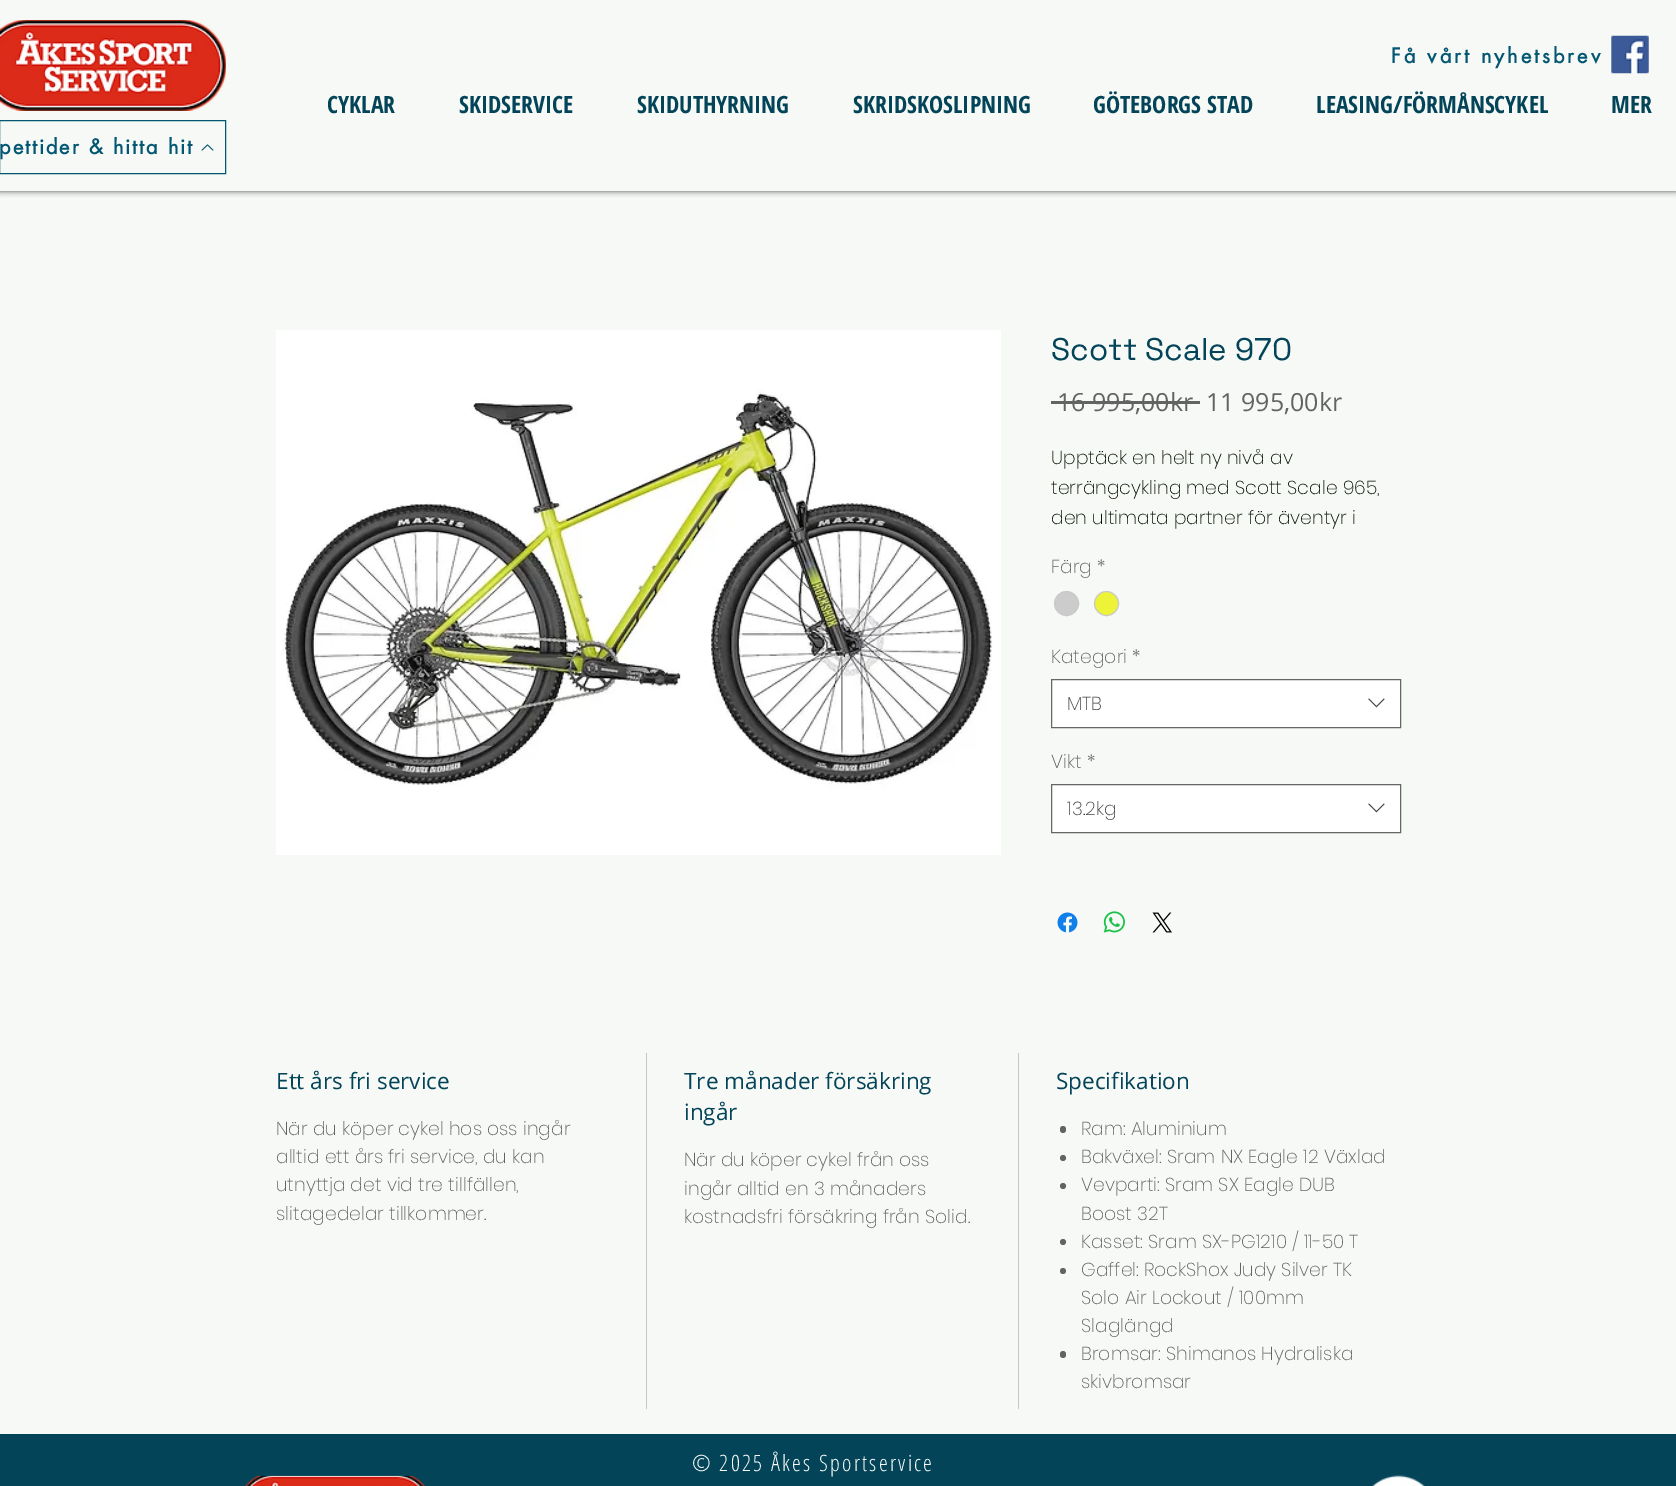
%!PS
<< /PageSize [1676 1486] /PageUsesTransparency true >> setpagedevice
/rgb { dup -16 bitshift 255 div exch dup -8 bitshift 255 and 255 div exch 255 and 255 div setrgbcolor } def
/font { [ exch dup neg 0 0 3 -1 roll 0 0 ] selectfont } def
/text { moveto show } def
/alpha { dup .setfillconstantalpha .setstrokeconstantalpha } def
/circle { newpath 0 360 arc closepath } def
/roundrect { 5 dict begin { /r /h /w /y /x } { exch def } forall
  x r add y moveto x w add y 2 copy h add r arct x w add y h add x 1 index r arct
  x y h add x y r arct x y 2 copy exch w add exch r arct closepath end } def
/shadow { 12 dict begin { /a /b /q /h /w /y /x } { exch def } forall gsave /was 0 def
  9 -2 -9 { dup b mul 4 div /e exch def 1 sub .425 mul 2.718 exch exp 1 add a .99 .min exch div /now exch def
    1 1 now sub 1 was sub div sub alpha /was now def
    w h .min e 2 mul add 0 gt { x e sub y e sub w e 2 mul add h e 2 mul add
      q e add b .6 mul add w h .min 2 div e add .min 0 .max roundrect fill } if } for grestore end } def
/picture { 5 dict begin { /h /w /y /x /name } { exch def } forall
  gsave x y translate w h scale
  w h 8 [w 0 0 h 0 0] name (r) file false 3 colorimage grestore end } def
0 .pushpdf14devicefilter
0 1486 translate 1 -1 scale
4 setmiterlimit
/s1 { /OpenSansCondensed-Bold 23.75 font 16#034459 rgb } def
/s2 { /SpaceGrotesk-Regular 31.25 font 16#034459 rgb } def
/s3 { /OpenSans-Regular 25 font 16#626462 rgb } def
/s4 { /Poppins-ExtraLight 18.75 font 16#091405 rgb } def
/s5 { /Poppins-ExtraLight 18.75 font 16#626462 rgb } def
/s6 { /Poppins-ExtraLight 18.75 font 16#444444 rgb } def
/s7 { /OpenSans-Regular 22.5 font 16#034459 rgb } def
16#F6F9F5 rgb
0 0 1676 1486 rectfill
16#000000 rgb
0 0 1676 191 0 3 0.7 shadow
16#F6F9F5 rgb
0 0 1676 191 rectfill
(pic1.raw) 0 20 226 91 picture
/futura-Bold 20 font
16#035772 rgb
1391 63 moveto 3 0 (Få vårt nyhetsbrev) ashow
(pic2.raw) 1611 35 38 39 picture
s1
(CYKLAR) 327 113 text
(SKIDSERVICE) 459 113 text
(SKIDUTHYRNING) 637 113 text
(SKRIDSKOSLIPNING) 853 113 text
(GÖTEBORGS STAD) 1093 113 text
(LEASING/FÖRMÅNSCYKEL) 1316 113 text
(MER) 1611 113 text
16#035772 rgb
-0.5 120.5 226 53 rectstroke
/futura-Bold 20 font
-1 154 moveto 2 0 (pettider & hitta hit) ashow
(pic3.raw) 201 144 13 7 picture
(pic4.raw) 276 330 725 525 picture
s2
(Scott Scale 970) 1051 360 text
s3
(16 995,00kr) 1057 411 text
1051 401 149 3 rectfill
(11 995,00kr) 1206 411 text
s4
(Upptäck en helt ny nivå av) 1051 464 text
(terrängcykling med Scott Scale 965,) 1051 494 text
(den ultimata partner för äventyr i) 1051 524 text
s5
(Färg *) 1051 573 text
16#CCCCCC rgb
1066.5 603.5 12 circle gsave fill grestore
16#C9C9C9 rgb
stroke
16#EDF337 rgb
1106.5 603.5 12 circle gsave fill grestore
16#C9C9C9 rgb
stroke
s5
(Kategori *) 1051 663 text
16#FFFFFF rgb
1051.5 679.5 moveto 1400.5 679.5 lineto 1400.5 727.5 lineto 1051.5 727.5 lineto closepath gsave fill grestore
16#666666 rgb
stroke
s6
(MTB) 1067 710 text
(pic5.raw) 1368 698 17 10 picture
s5
(Vikt *) 1051 768 text
16#FFFFFF rgb
1051.5 784.5 moveto 1400.5 784.5 lineto 1400.5 832.5 lineto 1051.5 832.5 lineto closepath gsave fill grestore
16#666666 rgb
stroke
s6
(13.2kg) 1067 815 text
(pic5.raw) 1368 803 17 10 picture
(pic6.raw) 1057 912 21 21 picture
(pic7.raw) 1103 911 22 22 picture
(pic8.raw) 1152 912 20 21 picture
16#C5C7C4 rgb
646 1053 1 356 rectfill
s7
(Ett års fri service) 276 1089 text
s5
(När du köper cykel hos oss ingår) 276 1135 text
(alltid ett års fri service, du kan) 276 1163 text
(utnyttja det vid tre tillfällen,) 276 1191 text
(slitagedelar tillkommer.) 276 1220 text
16#C5C7C4 rgb
1018 1053 1 356 rectfill
s7
(Tre månader försäkring) 684 1089 text
(ingår) 684 1120 text
s5
(När du köper cykel från oss) 684 1166 text
(ingår alltid en 3 månaders) 684 1195 text
(kostnadsfri försäkring från Solid.) 684 1223 text
s7
(Specifikation) 1056 1089 text
16#626462 rgb
1060 1126 6 7 3 roundrect fill
s5
(Ram: Aluminium) 1081 1135 text
1063 1158 3 circle fill
(Bakväxel: Sram NX Eagle 12 Växlad) 1081 1163 text
1063 1186 3 circle fill
(Vevparti: Sram SX Eagle DUB) 1081 1191 text
(Boost 32T) 1081 1220 text
1063 1242 3 circle fill
(Kasset: Sram SX-PG1210 / 11-50 T) 1081 1248 text
1063 1271 3 circle fill
(Gaffel: RockShox Judy Silver TK) 1081 1276 text
(Solo Air Lockout / 100mm) 1081 1304 text
(Slaglängd) 1081 1332 text
1060 1351 6 7 3 roundrect fill
(Bromsar: Shimanos Hydraliska) 1081 1360 text
(skivbromsar) 1081 1388 text
16#034459 rgb
0 1434 1676 52 rectfill
/OpenSansCondensed-Light 22.5 font
16#F6F9F5 rgb
692 1471 moveto 2.25 0 (© 2025 Åkes Sportservice) ashow
(pic9.raw) 245 1475 181 11 picture
(pic10.raw) 1372 1475 53 11 picture
.poppdf14devicefilter showpage
